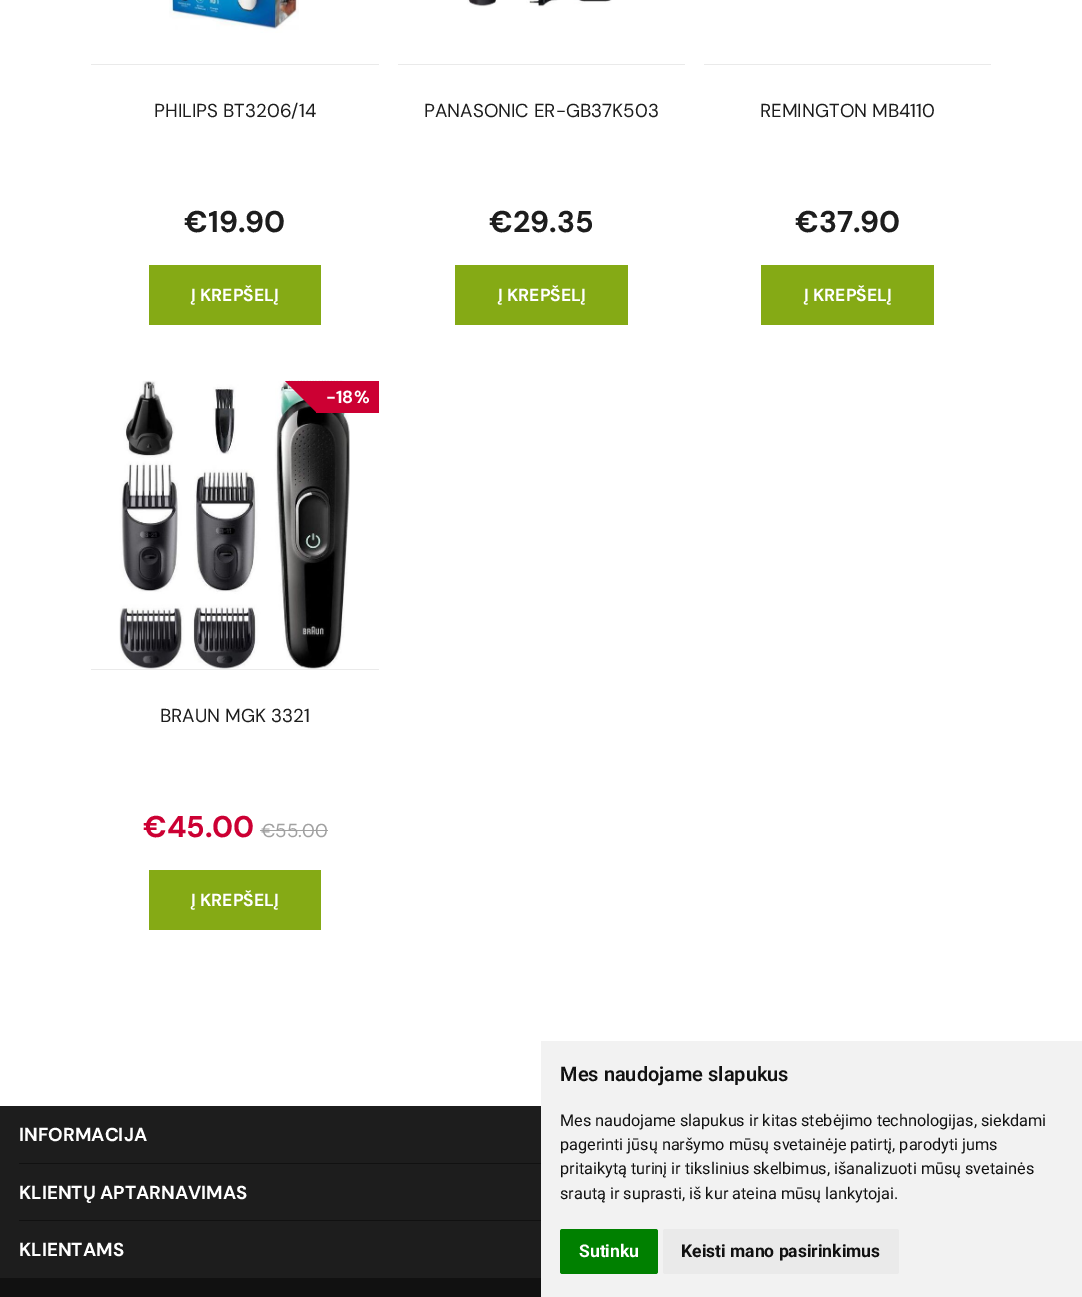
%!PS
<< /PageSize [1082 1297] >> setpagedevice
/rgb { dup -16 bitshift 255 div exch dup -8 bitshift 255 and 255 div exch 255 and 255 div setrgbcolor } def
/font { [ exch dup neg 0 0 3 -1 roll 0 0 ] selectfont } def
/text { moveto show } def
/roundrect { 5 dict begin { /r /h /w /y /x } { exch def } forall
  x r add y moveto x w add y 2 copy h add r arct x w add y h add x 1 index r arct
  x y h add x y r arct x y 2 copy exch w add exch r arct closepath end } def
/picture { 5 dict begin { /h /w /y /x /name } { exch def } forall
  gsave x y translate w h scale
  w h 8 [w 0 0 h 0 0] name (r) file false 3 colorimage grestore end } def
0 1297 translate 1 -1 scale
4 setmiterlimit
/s1 { /DMSans-Regular 18.75 font 16#1D1D1D rgb } def
/s2 { /DMSans-Bold 30 font 16#1D1D1D rgb } def
/s3 { /DMSans-Bold 17.5 font 16#FFFFFF rgb } def
/s4 { /DMSans-Bold 30 font 16#CC0033 rgb } def
/s5 { /DMSans-Regular 18.75 font 16#A1A1A1 rgb } def
/s6 { /DMSans-Bold 18.75 font 16#FFFFFF rgb } def
/s7 { /Roboto-SemiBold 20 font 16#111111 rgb } def
/s8 { /Roboto-Regular 16.25 font 16#111111 rgb } def
/s9 { /Roboto-Bold 17.5 font 16#FFFFFF rgb } def
/s10 { /Roboto-Bold 17.5 font 16#111111 rgb } def
16#FFFFFF rgb
0 0 1082 1297 rectfill
16#EAEAEA rgb
91 64 288 1 rectfill
(pic1.raw) 169 0 130 33 picture
s1
(PHILIPS BT3206/14) 154 117 text
s2
(€19.90) 184 232 text
16#85AA15 rgb
149 265 172 60 rectfill
s3
(Į KREPŠELĮ) 191 301 text
16#EAEAEA rgb
398 64 287 1 rectfill
(pic2.raw) 467 0 145 7 picture
s1
(PANASONIC ER-GB37K503) 424 117 text
s2
(€29.35) 489 232 text
16#85AA15 rgb
455 265 173 60 rectfill
s3
(Į KREPŠELĮ) 498 301 text
16#EAEAEA rgb
704 64 287 1 rectfill
s1
(REMINGTON MB4110) 760 117 text
s2
(€37.90) 795 232 text
16#85AA15 rgb
761 265 173 60 rectfill
s3
(Į KREPŠELĮ) 804 301 text
16#EAEAEA rgb
91 669 288 1 rectfill
(pic3.raw) 119 380 231 289 picture
16#CC0033 rgb
285 381 moveto 348 381 lineto 316 412 lineto closepath fill
316 381 63 32 rectfill
s3
(-18%) 326 403 text
s1
(BRAUN MGK 3321) 160 722 text
s4
(€45.00) 143 837 text
s5
(€55.00) 261 837 text
260 830 68 1 rectfill
16#85AA15 rgb
149 870 172 60 rectfill
s3
(Į KREPŠELĮ) 191 906 text
16#1D1D1D rgb
0 1106 541 172 rectfill
16#111111 rgb
19 1163 522 1 rectfill
s6
(INFORMACIJA) 19 1141 text
16#111111 rgb
19 1220 522 1 rectfill
s6
(KLIENTŲ APTARNAVIMAS) 19 1199 text
(KLIENTAMS) 19 1256 text
16#111111 rgb
0 1278 541 19 rectfill
16#F2F2F2 rgb
541 1041 541 256 rectfill
s7
(Mes naudojame slapukus) 560 1081 text
s8
(Mes naudojame slapukus ir kitas stebėjimo technologijas, siekdami) 560 1126 text
(pagerinti jūsų naršymo mūsų svetainėje patirtį, parodyti jums) 560 1150 text
(pritaikytą turinį ir tikslinius skelbimus, išanalizuoti mūsų svetainės) 560 1174 text
(srautą ir suprasti, iš kur ateina mūsų lankytojai.) 560 1199 text
16#008000 rgb
560 1229 98 45 2.5 roundrect fill
s9
(Sutinku) 579 1257 text
16#EAEAEA rgb
663 1229 236 45 2.5 roundrect fill
s10
(Keisti mano pasirinkimus) 681 1257 text
showpage
